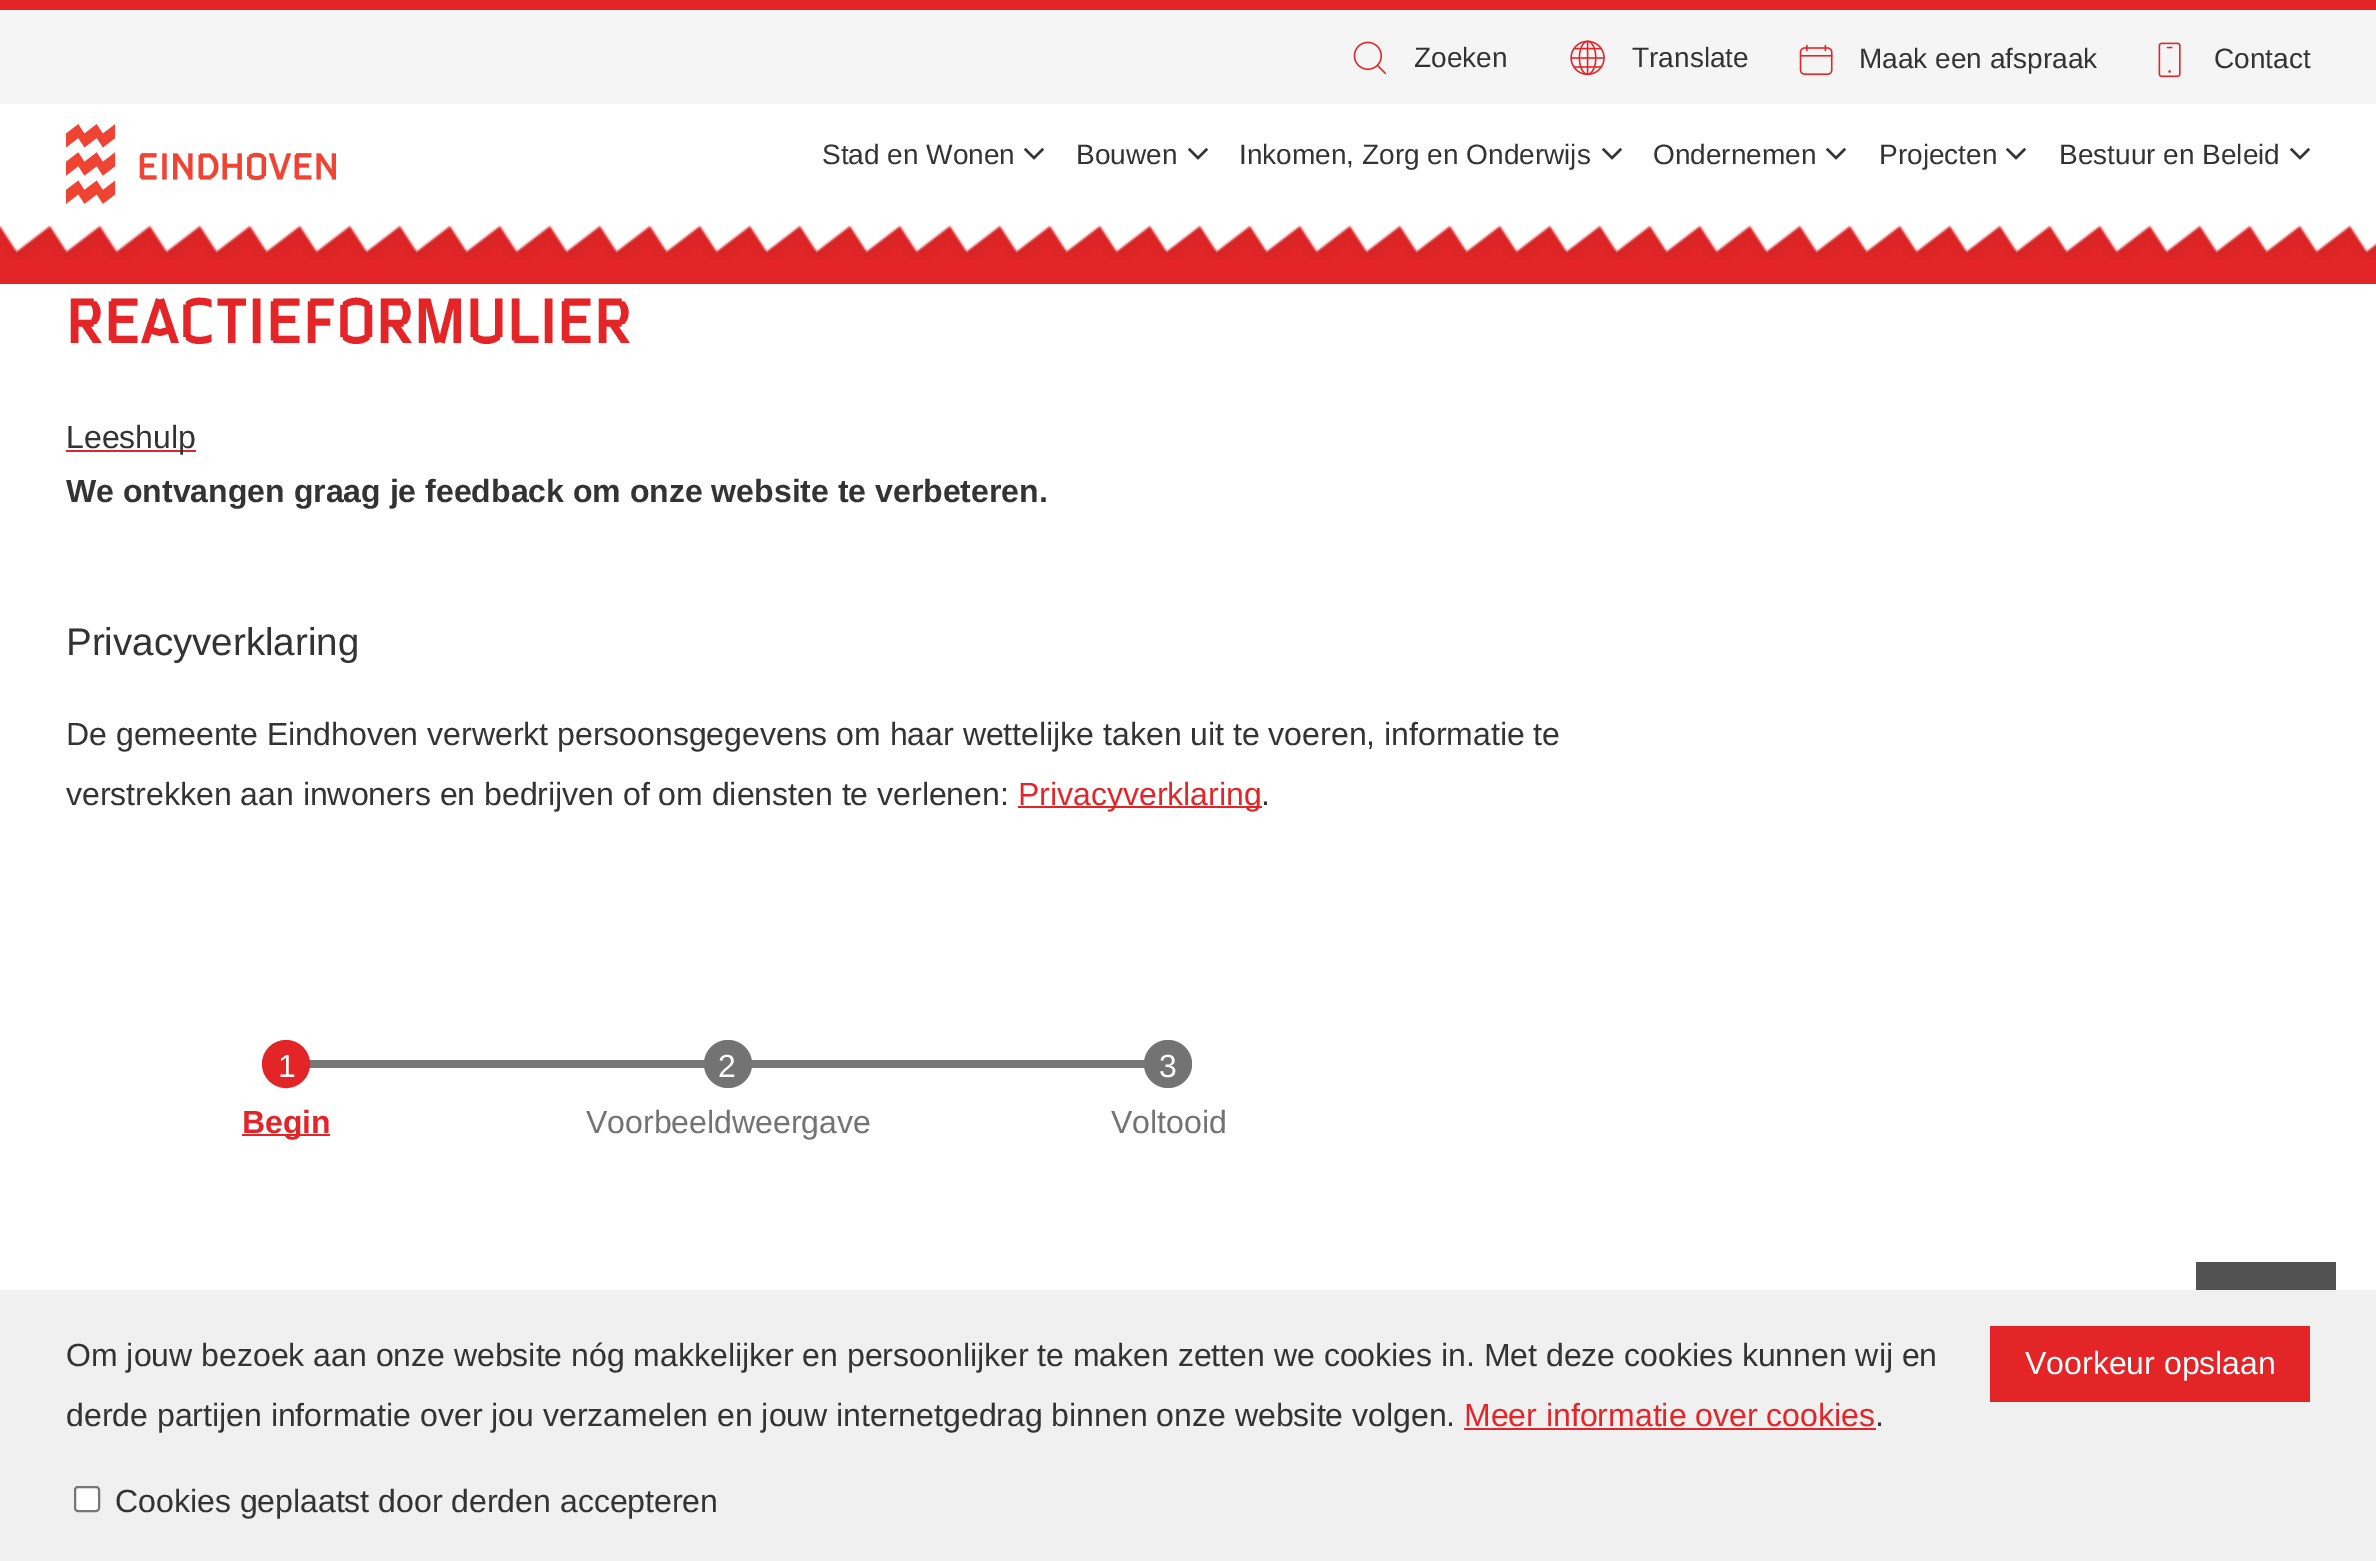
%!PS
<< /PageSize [2376 1561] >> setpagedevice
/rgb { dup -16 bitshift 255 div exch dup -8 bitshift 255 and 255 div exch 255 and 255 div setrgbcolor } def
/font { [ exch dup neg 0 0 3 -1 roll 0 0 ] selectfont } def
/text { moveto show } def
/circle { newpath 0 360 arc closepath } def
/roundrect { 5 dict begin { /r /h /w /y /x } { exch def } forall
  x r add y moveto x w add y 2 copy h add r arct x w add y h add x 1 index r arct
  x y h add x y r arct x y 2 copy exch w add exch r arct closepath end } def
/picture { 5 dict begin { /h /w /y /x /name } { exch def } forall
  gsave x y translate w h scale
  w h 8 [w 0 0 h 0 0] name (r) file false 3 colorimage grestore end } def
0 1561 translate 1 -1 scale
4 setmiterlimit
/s1 { /LiberationSans-Regular 28 font 16#333333 rgb } def
/s2 { /LiberationSans-Regular 32 font 16#333333 rgb } def
/s3 { /LiberationSans-Regular 32 font 16#E32527 rgb } def
/s4 { /LiberationSans-Regular 32 font 16#FFFFFF rgb } def
/s5 { /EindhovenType-Regular 64 font 16#E32527 rgb } def
/s6 { /LiberationSans-Bold 32 font 16#333333 rgb } def
/s7 { /LiberationSans-Regular 38.5 font 16#333333 rgb } def
/s8 { /LiberationSans-Bold 32 font 16#E32527 rgb } def
/s9 { /LiberationSans-Regular 32 font 16#737373 rgb } def
16#FFFFFF rgb
0 0 2376 1561 rectfill
16#E32527 rgb
0 0 2376 10 rectfill
0 225 2376 59 rectfill
16#F5F5F5 rgb
0 10 2376 94 rectfill
(pic1.raw) 1353 41 33 33 picture
s1
(Zoeken) 1414 67 text
(pic2.raw) 1570 40 35 36 picture
(Translate) 1632 67 text
(pic3.raw) 1799 44 34 31 picture
(Maak een afspraak) 1859 68 text
(pic4.raw) 2158 42 23 36 picture
(Contact) 2214 68 text
(pic5.raw) 66 124 270 80 picture
(Stad en Wonen) 822 164 text
(pic6.raw) 1024 148 20 12 picture
(Bouwen) 1076 164 text
(pic6.raw) 1188 148 20 12 picture
(Inkomen, Zorg en Onderwijs) 1239 164 text
(pic6.raw) 1602 148 20 12 picture
(Ondernemen) 1653 164 text
(pic6.raw) 1826 148 20 12 picture
(Projecten) 1879 164 text
(pic6.raw) 2006 148 20 12 picture
(Bestuur en Beleid) 2059 164 text
(pic6.raw) 2290 148 20 12 picture
(pic7.raw) 0 224 2376 36 picture
16#F0F0F0 rgb
0 1290 2376 271 rectfill
s2
(Om jouw bezoek aan onze website nóg makkelijker en persoonlijker te maken zetten we cookies in. Met deze cookies kunnen wij en) 66 1366 text
(derde partijen informatie over jou verzamelen en jouw internetgedrag binnen onze website volgen.) 66 1426 text
s3
(Meer informatie over cookies) 1464 1426 text
1464 1428 412 2 rectfill
s2
(.) 1875 1426 text
16#FFFFFF rgb
75 1487 24 24 3 roundrect gsave fill grestore
16#767676 rgb
2 setlinewidth
stroke
s2
(Cookies geplaatst door derden accepteren) 115 1512 text
16#E32527 rgb
1990 1326 320 76 rectfill
s4
(Voorkeur opslaan) 2025 1374 text
s5
(Reactieformulier) 66 343 text
66 450 130 2 rectfill
s2
(Leeshulp) 66 448 text
s6
(We ontvangen graag je feedback om onze website te verbeteren.) 66 502 text
s7
(Privacyverklaring) 66 655 text
s2
(De gemeente Eindhoven verwerkt persoonsgegevens om haar wettelijke taken uit te voeren, informatie te) 66 745 text
(verstrekken aan inwoners en bedrijven of om diensten te verlenen:) 66 805 text
16#E32527 rgb
1018 806 244 2 rectfill
(Privacyverklaring) 1018 805 text
s2
(.) 1261 805 text
16#777777 rgb
309 1060 396 8 rectfill
16#E32527 rgb
286 1064 23 circle gsave fill grestore
stroke
s4
(1) 278 1077 text
16#E32527 rgb
242 1134 88 2 rectfill
s8
(Begin) 242 1133 text
16#777777 rgb
751 1060 394 8 rectfill
16#737373 rgb
728 1064 24 circle fill
s4
(2) 718 1077 text
s9
(Voorbeeldweergave) 586 1133 text
1168 1064 24 circle fill
s4
(3) 1159 1077 text
s9
(Voltooid) 1111 1133 text
16#525252 rgb
2196 1262 140 28 rectfill
showpage
